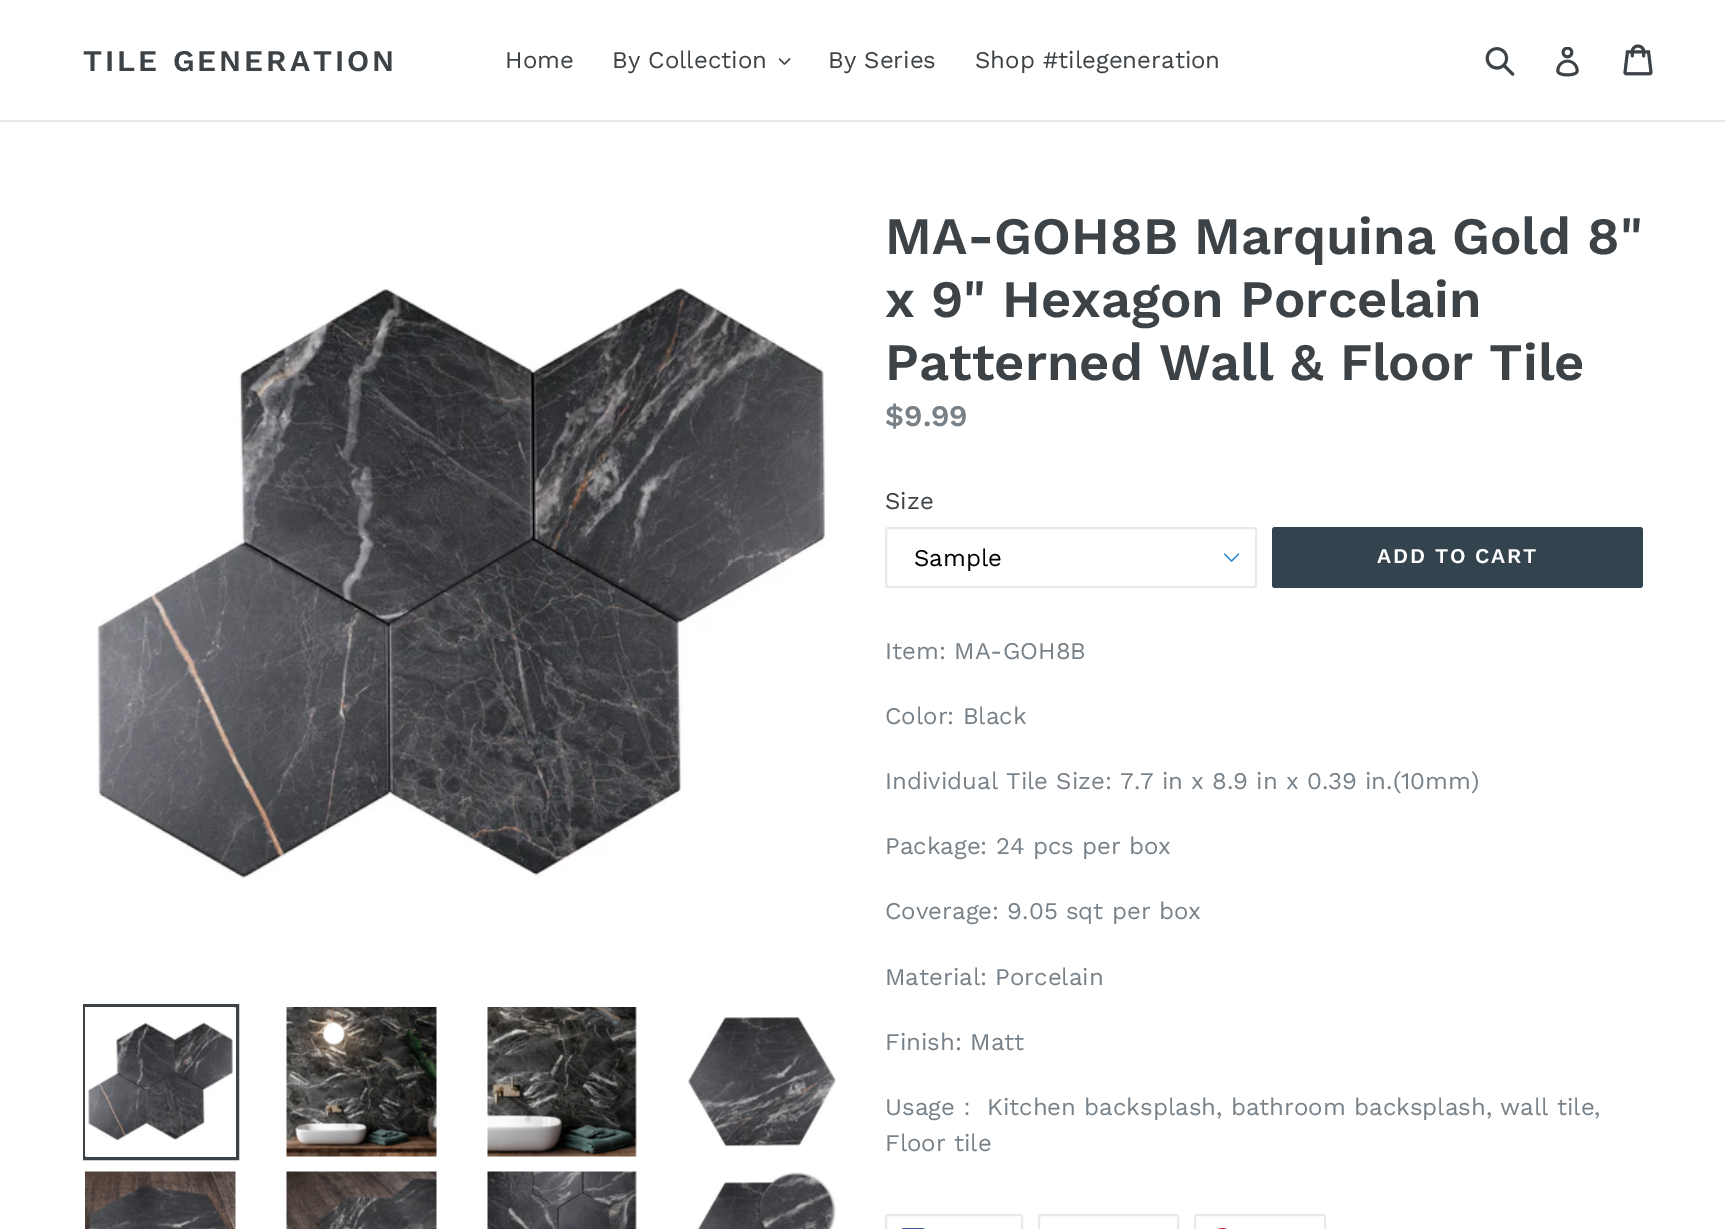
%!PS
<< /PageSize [1725 1229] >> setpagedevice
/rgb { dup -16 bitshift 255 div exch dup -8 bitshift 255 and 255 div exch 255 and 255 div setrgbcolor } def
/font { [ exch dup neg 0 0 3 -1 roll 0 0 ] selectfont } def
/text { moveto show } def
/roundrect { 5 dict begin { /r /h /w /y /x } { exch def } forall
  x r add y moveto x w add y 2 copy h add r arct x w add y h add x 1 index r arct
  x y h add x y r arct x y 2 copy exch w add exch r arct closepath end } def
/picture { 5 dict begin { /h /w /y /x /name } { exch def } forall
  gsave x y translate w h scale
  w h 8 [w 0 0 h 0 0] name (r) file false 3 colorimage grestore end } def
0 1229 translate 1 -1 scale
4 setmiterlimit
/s1 { /WorkSans-Regular 24 font 16#3D4246 rgb } def
/s2 { /WorkSans-SemiBold 52.5 font 16#3D4246 rgb } def
/s3 { /WorkSans-SemiBold 30 font 16#788188 rgb } def
/s4 { /WorkSans-Regular 24 font 16#000000 rgb } def
/s5 { /WorkSans-Regular 24 font 16#788188 rgb } def
/s6 { /WenQuanYiZenHei-Medium 24 font 16#788188 rgb } def
16#FFFFFF rgb
0 0 1725 1229 rectfill
16#E8E9EB rgb
0 120 1725 2 rectfill
/WorkSans-SemiBold 30 font
16#3D4246 rgb
83 71 moveto 3 0 (TILE GENERATION) ashow
s1
(Home) 505 68 text
(By Collection) 612 68 text
(pic1.raw) 779 58 12 7 picture
(By Series) 828 68 text
(Shop #tilegeneration) 975 68 text
(pic2.raw) 1485 47 30 29 picture
(pic3.raw) 1556 47 23 30 picture
(pic4.raw) 1623 44 30 32 picture
(pic5.raw) 97 288 730 590 picture
3 setlinewidth
84.5 1005.5 153 153 rectstroke
(pic6.raw) 85 1007 149 150 picture
(pic7.raw) 286 1007 151 150 picture
(pic8.raw) 487 1007 150 150 picture
(pic9.raw) 688 1017 148 130 picture
(pic10.raw) 85 1171 151 58 picture
(pic11.raw) 286 1171 151 58 picture
(pic12.raw) 487 1171 150 58 picture
(pic13.raw) 697 1172 139 57 picture
s2
(MA-GOH8B Marquina Gold 8") 885 254 text
(x 9" Hexagon Porcelain) 885 317 text
(Patterned Wall & Floor Tile) 885 380 text
s3
($9.99) 885 426 text
s1
(Size) 885 509 text
(pic14.raw) 1223 553 17 9 picture
16#E8E9EB rgb
2 setlinewidth
886 528 370 59 2 roundrect stroke
s4
(Sample) 914 566 text
16#34444E rgb
1272 527 371 61 3 roundrect fill
/WorkSans-SemiBold 21 font
16#FFFFFF rgb
1377 563 moveto 1.75 0 (ADD TO CART) ashow
s5
(Item: MA-GOH8B) 885 659 text
(Color: Black) 885 724 text
(Individual Tile Size: 7.7 in x 8.9 in x 0.39 in.\(10mm\)) 885 789 text
(Package: 24 pcs per box) 885 854 text
(Coverage: 9.05 sqt per box) 885 919 text
(Material: Porcelain) 885 985 text
(Finish: Matt) 885 1050 text
(Usage) 885 1115 text
s6
(：) 955 1115 text
s5
(Kitchen backsplash, bathroom backsplash, wall tile,) 987 1115 text
(Floor tile) 885 1151 text
16#E8E9EB rgb
886 1215 136 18 2 roundrect stroke
(pic15.raw) 902 1228 23 1 picture
1039 1215 139 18 2 roundrect stroke
1195 1215 130 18 2 roundrect stroke
(pic16.raw) 1218 1228 9 1 picture
showpage
